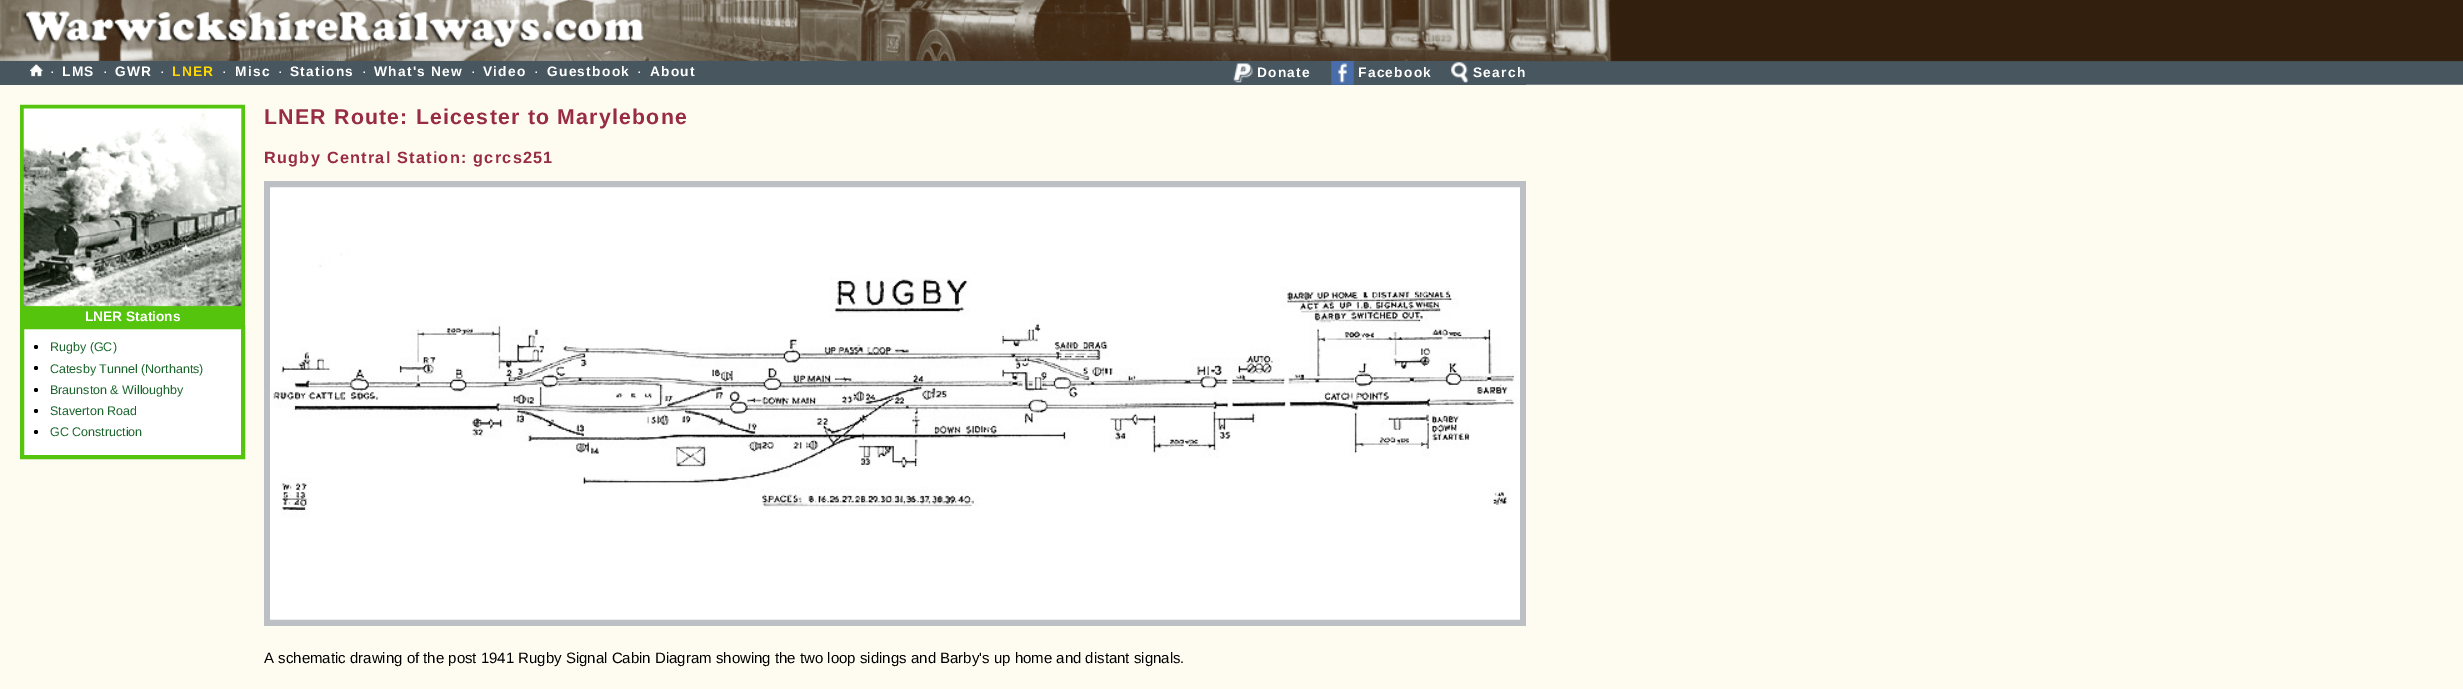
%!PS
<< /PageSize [2463 689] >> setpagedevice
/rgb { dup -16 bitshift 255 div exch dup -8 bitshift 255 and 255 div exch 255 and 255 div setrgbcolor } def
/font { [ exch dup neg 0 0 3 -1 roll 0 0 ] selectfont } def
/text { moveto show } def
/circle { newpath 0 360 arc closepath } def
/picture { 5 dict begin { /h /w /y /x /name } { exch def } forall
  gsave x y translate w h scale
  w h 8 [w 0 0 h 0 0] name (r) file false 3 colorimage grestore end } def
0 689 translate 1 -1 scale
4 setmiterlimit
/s1 { /LiberationSans-Regular 13.75 font 16#FFFFFF rgb } def
/s2 { /LiberationSans-Bold 13.75 font 16#FFFFFF rgb } def
/s3 { /LiberationSans-Regular 12.5 font 16#1B662C rgb } def
/s4 { /LiberationSans-Regular 15 font 16#000000 rgb } def
16#FEFBF0 rgb
0 0 2463 689 rectfill
(pic1.raw) 0 0 2463 85 picture
16#47565F rgb
0 61 1526 24 rectfill
(pic2.raw) 30 64 13 13 picture
s1
(·) 50 76 text
/LiberationSans-Bold 13.75 font
62 76 moveto 1.25 0 (LMS) ashow
s1
(·) 103 76 text
/LiberationSans-Bold 13.75 font
115 76 moveto 1.25 0 (GWR) ashow
s1
(·) 160 76 text
/LiberationSans-Bold 13.75 font
16#FED700 rgb
172 76 moveto 1.25 0 (LNER) ashow
s1
(·) 222 76 text
/LiberationSans-Bold 13.75 font
235 76 moveto 1.25 0 (Misc) ashow
s1
(·) 278 76 text
/LiberationSans-Bold 13.75 font
290 76 moveto 1.25 0 (Stations) ashow
s1
(·) 362 76 text
/LiberationSans-Bold 13.75 font
374 76 moveto 1.25 0 (What's New) ashow
s1
(·) 471 76 text
/LiberationSans-Bold 13.75 font
483 76 moveto 1.25 0 (Video) ashow
s1
(·) 534 76 text
/LiberationSans-Bold 13.75 font
547 76 moveto 1.25 0 (Guestbook) ashow
s1
(·) 637 76 text
/LiberationSans-Bold 13.75 font
650 76 moveto 1.25 0 (About) ashow
(pic3.raw) 1233 63 20 20 picture
1257 77 moveto 1.25 0 (Donate) ashow
(pic4.raw) 1331 61 23 24 picture
1358 77 moveto 1.25 0 (Facebook) ashow
(pic5.raw) 1451 62 17 21 picture
1473 77 moveto 1.25 0 (Search) ashow
16#54C50C rgb
20 307 225 18 rectfill
(pic6.raw) 20 104 225 203 picture
s2
(LNER Stations) 85 321 text
22 327 moveto 243 327 lineto 243 457 lineto 22 457 lineto closepath gsave fill grestore
16#54C50C rgb
4 setlinewidth
stroke
16#000000 rgb
36 347 2 circle fill
s3
(Rugby \(GC\)) 50 351 text
16#000000 rgb
36 368 2 circle fill
s3
(Catesby Tunnel \(Northants\)) 50 373 text
16#000000 rgb
36 390 2 circle fill
s3
(Braunston & Willoughby) 50 394 text
16#000000 rgb
36 411 2 circle fill
s3
(Staverton Road) 50 415 text
16#000000 rgb
36 432 2 circle fill
s3
(GC Construction) 50 436 text
/LiberationSans-Bold 21.25 font
16#982B46 rgb
264 124 moveto 1.25 0 (LNER Route: Leicester to Marylebone) ashow
/LiberationSans-Bold 16.25 font
264 163 moveto 1.25 0 (Rugby Central Station: gcrcs251) ashow
16#BCBFC3 rgb
264 181 1262 445 rectfill
(pic7.raw) 270 187 1250 433 picture
s4
(A schematic drawing of the post 1941 Rugby Signal Cabin Diagram showing the two loop sidings and Barby's up home and distant signals.) 264 663 text
showpage
